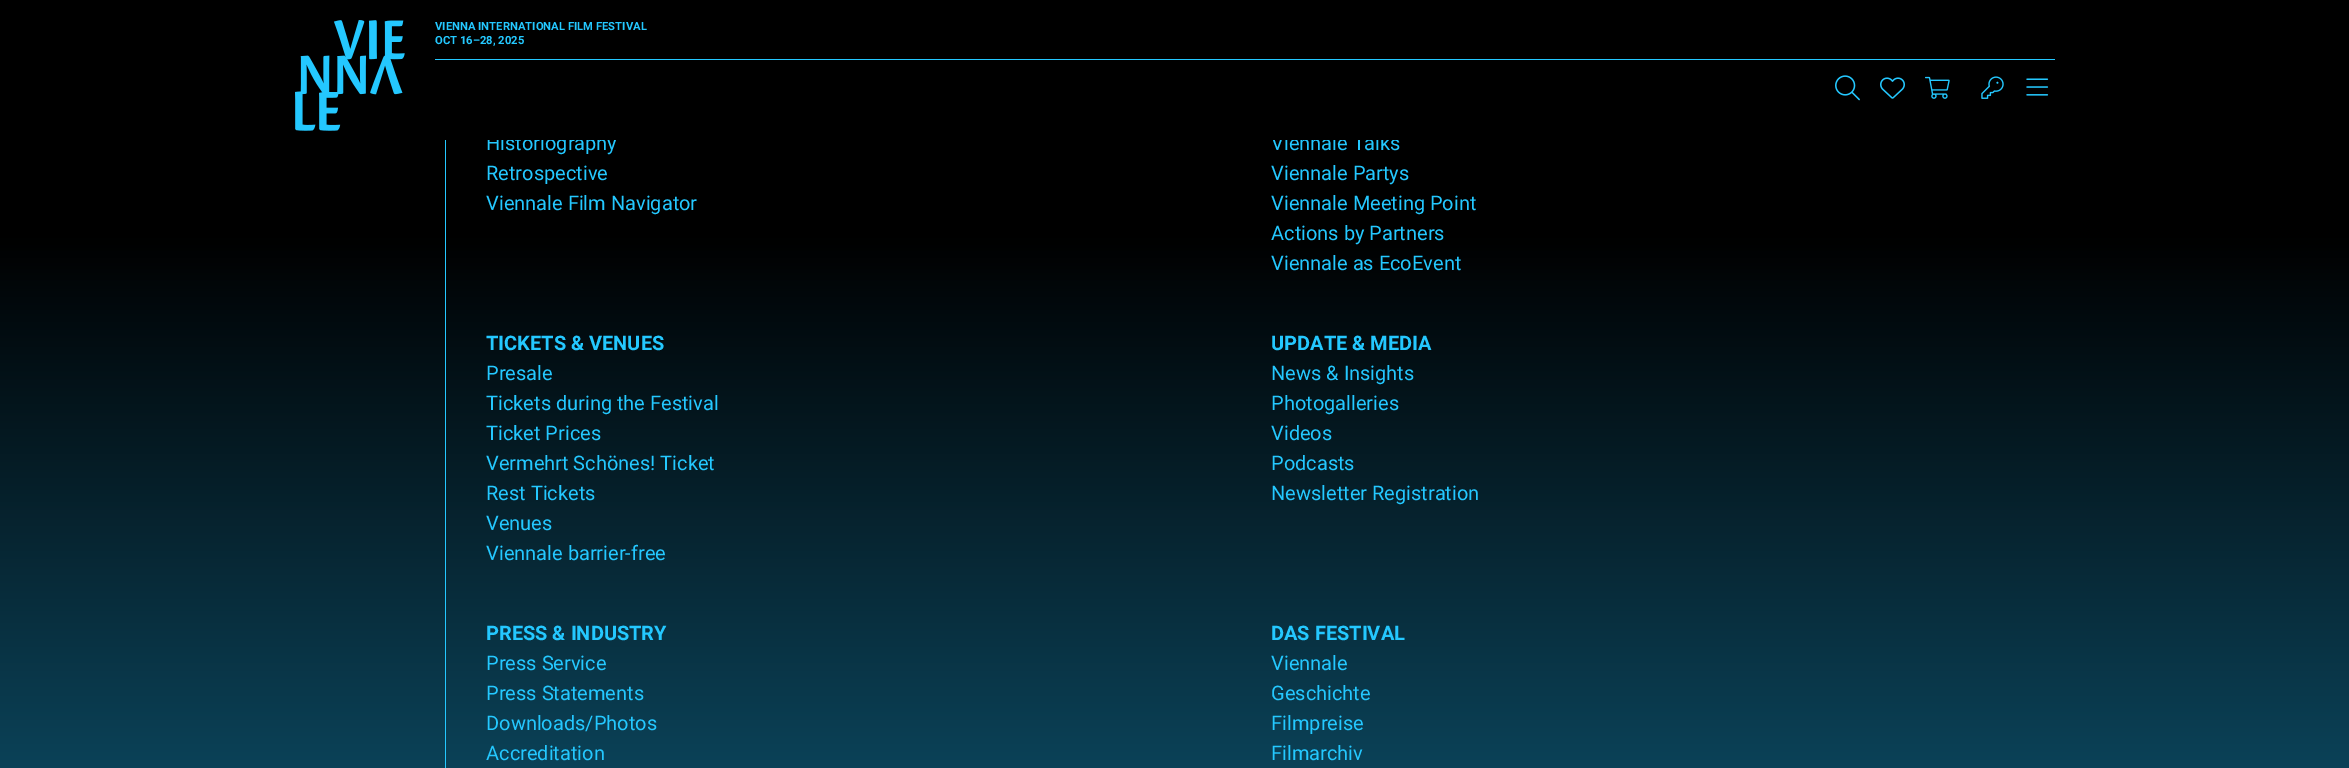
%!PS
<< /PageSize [2349 768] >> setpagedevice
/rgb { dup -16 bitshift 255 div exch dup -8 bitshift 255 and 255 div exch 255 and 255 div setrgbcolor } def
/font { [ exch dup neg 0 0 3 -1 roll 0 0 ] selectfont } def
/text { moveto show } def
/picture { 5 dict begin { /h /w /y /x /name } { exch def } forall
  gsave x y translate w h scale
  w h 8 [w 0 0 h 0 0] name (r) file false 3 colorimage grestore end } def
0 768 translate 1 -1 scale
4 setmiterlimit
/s1 { /Roboto-Regular 20 font 16#24C8FF rgb } def
/s2 { /Roboto-Bold 11.25 font 16#24C8FF rgb } def
/s3 { /Roboto-Bold 20 font 16#24C8FF rgb } def
16#FFFFFF rgb
0 0 2349 768 rectfill
gsave 0 140 moveto 2349 140 lineto 2349 768 lineto 0 768 lineto closepath clip newpath
<< /ShadingType 2 /ColorSpace /DeviceRGB /Coords [1175 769 1175 0] /Extend [true true] /Function << /FunctionType 3 /Domain [0 1] /Functions [<< /FunctionType 2 /Domain [0 1] /C0 [0.043 0.259 0.345] /C1 [0 0 0] /N 1 >> << /FunctionType 2 /Domain [0 1] /C0 [0 0 0] /C1 [0 0 0] /N 1 >>] /Bounds [0.7] /Encode [0 1 0 1] >> >> shfill grestore
s1
(Historiography) 486 150 text
(Viennale Talks) 1271 150 text
16#000000 rgb
0 0 2349 140 rectfill
(pic1.raw) 295 20 110 111 picture
16#24C8FF rgb
435 59 1620 1 rectfill
s2
(VIENNA INTERNATIONAL FILM FESTIVAL) 435 30 text
(OCT 16–28, 2025) 435 44 text
(pic2.raw) 1835 75 25 26 picture
(pic3.raw) 1880 77 25 22 picture
(pic4.raw) 1925 76 25 23 picture
(pic5.raw) 1981 76 23 23 picture
(pic6.raw) 2026 78 23 18 picture
445 140 1 628 rectfill
s1
(Retrospective) 486 180 text
(Viennale Film Navigator) 486 210 text
(Viennale Partys) 1271 180 text
(Viennale Meeting Point) 1271 210 text
(Actions by Partners) 1271 240 text
(Viennale as EcoEvent) 1271 270 text
s3
(TICKETS & VENUES) 486 350 text
s1
(Presale) 486 380 text
(Tickets during the Festival) 486 410 text
(Ticket Prices) 486 440 text
(Vermehrt Schönes! Ticket) 486 470 text
(Rest Tickets) 486 500 text
(Venues) 486 530 text
(Viennale barrier-free) 486 560 text
s3
(UPDATE & MEDIA) 1271 350 text
s1
(News & Insights) 1271 380 text
(Photogalleries) 1271 410 text
(Videos) 1271 440 text
(Podcasts) 1271 470 text
(Newsletter Registration) 1271 500 text
s3
(PRESS & INDUSTRY) 486 640 text
s1
(Press Service) 486 670 text
(Press Statements) 486 700 text
(Downloads/Photos) 486 730 text
(Accreditation) 486 760 text
s3
(DAS FESTIVAL) 1271 640 text
s1
(Viennale) 1271 670 text
(Geschichte) 1271 700 text
(Filmpreise) 1271 730 text
(Filmarchiv) 1271 760 text
showpage
